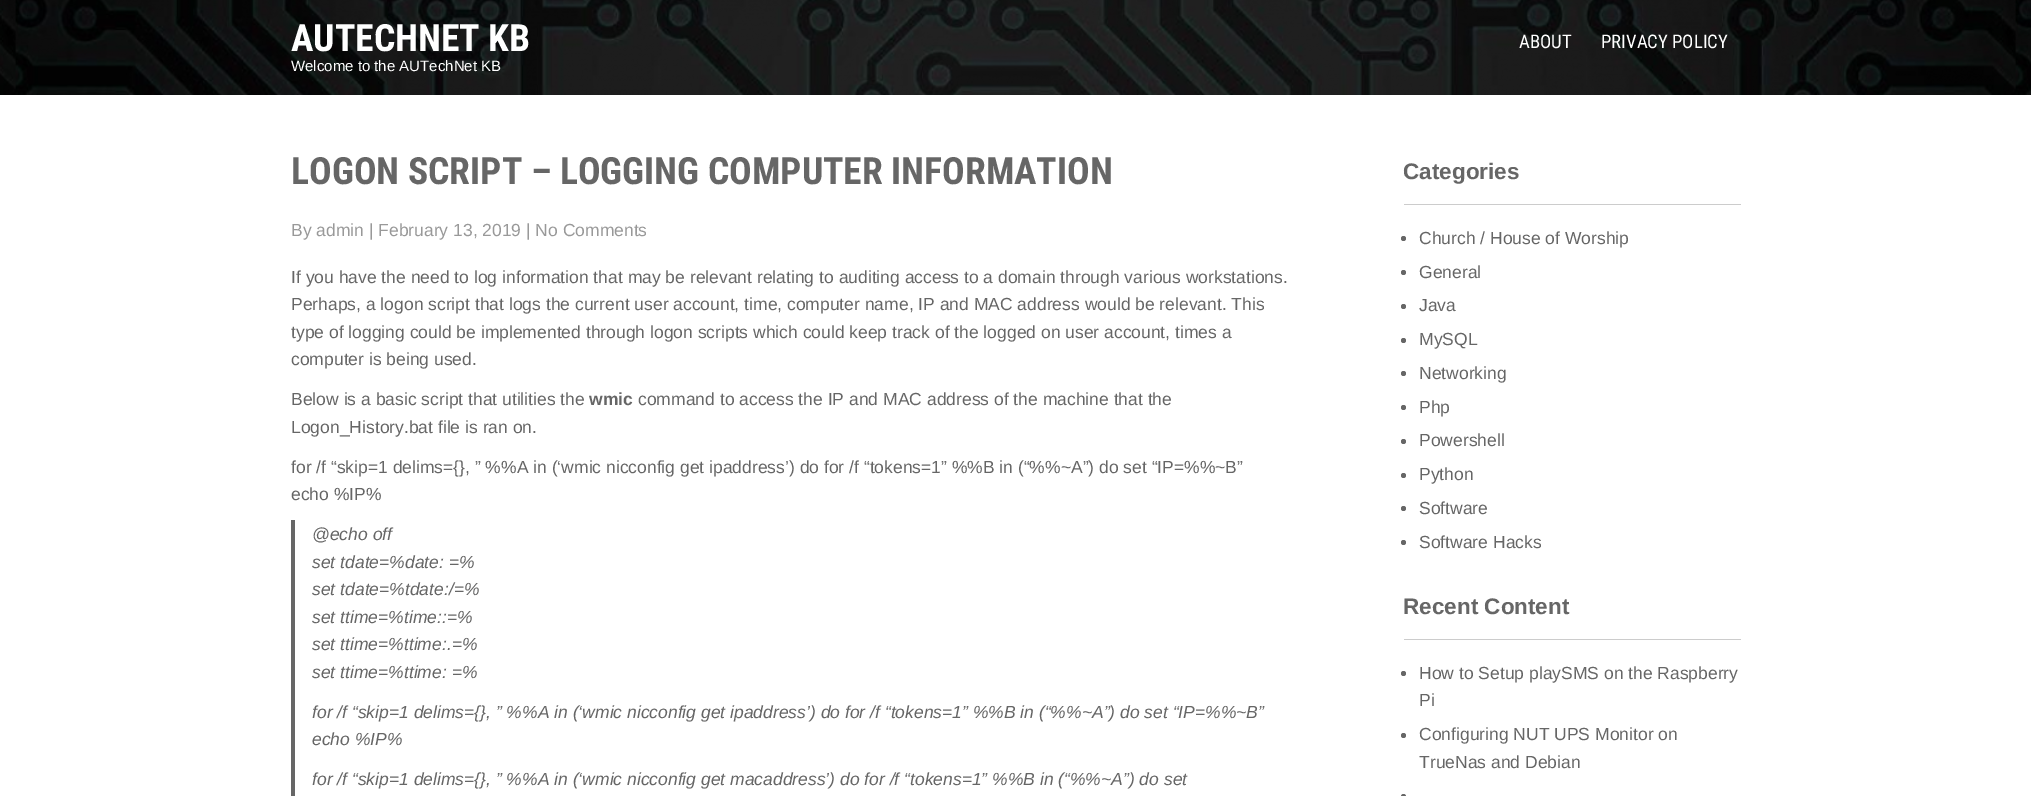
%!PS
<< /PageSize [2031 796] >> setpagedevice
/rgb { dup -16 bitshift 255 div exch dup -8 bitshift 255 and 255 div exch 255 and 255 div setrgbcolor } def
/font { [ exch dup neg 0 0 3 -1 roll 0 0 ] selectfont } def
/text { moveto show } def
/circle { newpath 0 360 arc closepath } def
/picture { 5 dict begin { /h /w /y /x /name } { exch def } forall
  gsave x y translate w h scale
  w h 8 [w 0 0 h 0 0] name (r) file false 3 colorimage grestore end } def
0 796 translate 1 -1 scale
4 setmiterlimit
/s1 { /RobotoCondensed-Bold 37.5 font 16#FFFFFF rgb } def
/s2 { /LiberationSans-Regular 15 font 16#FFFFFF rgb } def
/s3 { /RobotoCondensed-Regular 18.75 font 16#FFFFFF rgb } def
/s4 { /RobotoCondensed-Bold 37.5 font 16#666666 rgb } def
/s5 { /LiberationSans-Regular 17.5 font 16#999999 rgb } def
/s6 { /LiberationSans-Regular 17.5 font 16#666666 rgb } def
/s7 { /LiberationSans-Bold 17.5 font 16#666666 rgb } def
/s8 { /LiberationSans-Italic 17.5 font 16#666666 rgb } def
/s9 { /LiberationSans-Bold 22.5 font 16#666666 rgb } def
16#FFFFFF rgb
0 0 2031 796 rectfill
(pic1.raw) 0 0 2031 95 picture
s1
(AUTECHNET KB) 291 51 text
s2
(Welcome to the AUTechNet KB) 291 71 text
s3
(ABOUT) 1519 48 text
(PRIVACY POLICY) 1601 48 text
s4
(LOGON SCRIPT – LOGGING COMPUTER INFORMATION) 291 184 text
s5
(By admin | February 13, 2019 | No Comments) 291 236 text
s6
(If you have the need to log information that may be relevant relating to auditing access to a domain through various workstations.) 291 283 text
(Perhaps, a logon script that logs the current user account, time, computer name, IP and MAC address would be relevant. This) 291 310 text
(type of logging could be implemented through logon scripts which could keep track of the logged on user account, times a) 291 338 text
(computer is being used.) 291 365 text
(Below is a basic script that utilities the) 291 405 text
s7
(wmic) 589 405 text
s6
(command to access the IP and MAC address of the machine that the) 638 405 text
(Logon_History.bat file is ran on.) 291 433 text
(for /f “skip=1 delims={}, ” %%A in \(‘wmic nicconfig get ipaddress’\) do for /f “tokens=1” %%B in \(“%%~A”\) do set “IP=%%~B”) 291 473 text
(echo %IP%) 291 500 text
291 520 4 276 rectfill
s8
(@echo off) 312 540 text
(set tdate=%date: =%) 312 568 text
(set tdate=%tdate:/=%) 312 595 text
(set ttime=%time::=%) 312 623 text
(set ttime=%ttime:.=%) 312 650 text
(set ttime=%ttime: =%) 312 678 text
(for /f “skip=1 delims={}, ” %%A in \(‘wmic nicconfig get ipaddress’\) do for /f “tokens=1” %%B in \(“%%~A”\) do set “IP=%%~B”) 312 718 text
(echo %IP%) 312 745 text
(for /f “skip=1 delims={}, ” %%A in \(‘wmic nicconfig get macaddress’\) do for /f “tokens=1” %%B in \(“%%~A”\) do set) 312 785 text
16#CCCCCC rgb
1404 204 337 1 rectfill
s9
(Categories) 1403 179 text
1403.5 238.5 2.5 circle fill
s6
(Church / House of Worship) 1419 244 text
1403.5 272.5 2.5 circle fill
(General) 1419 278 text
1403.5 306.5 2.5 circle fill
(Java) 1419 311 text
1403.5 340.5 2.5 circle fill
(MySQL) 1419 345 text
1403.5 373.5 2.5 circle fill
(Networking) 1419 379 text
1403.5 407.5 2.5 circle fill
(Php) 1419 413 text
1403.5 441.5 2.5 circle fill
(Powershell) 1419 446 text
1403.5 475.5 2.5 circle fill
(Python) 1419 480 text
1403.5 508.5 2.5 circle fill
(Software) 1419 514 text
1403.5 542.5 2.5 circle fill
(Software Hacks) 1419 548 text
16#CCCCCC rgb
1404 639 337 1 rectfill
s9
(Recent Content) 1403 614 text
1403.5 673.5 2.5 circle fill
s6
(How to Setup playSMS on the Raspberry) 1419 679 text
(Pi) 1419 706 text
1403.5 735.5 2.5 circle fill
(Configuring NUT UPS Monitor on) 1419 740 text
(TrueNas and Debian) 1419 768 text
1403.5 796.5 2.5 circle fill
showpage
